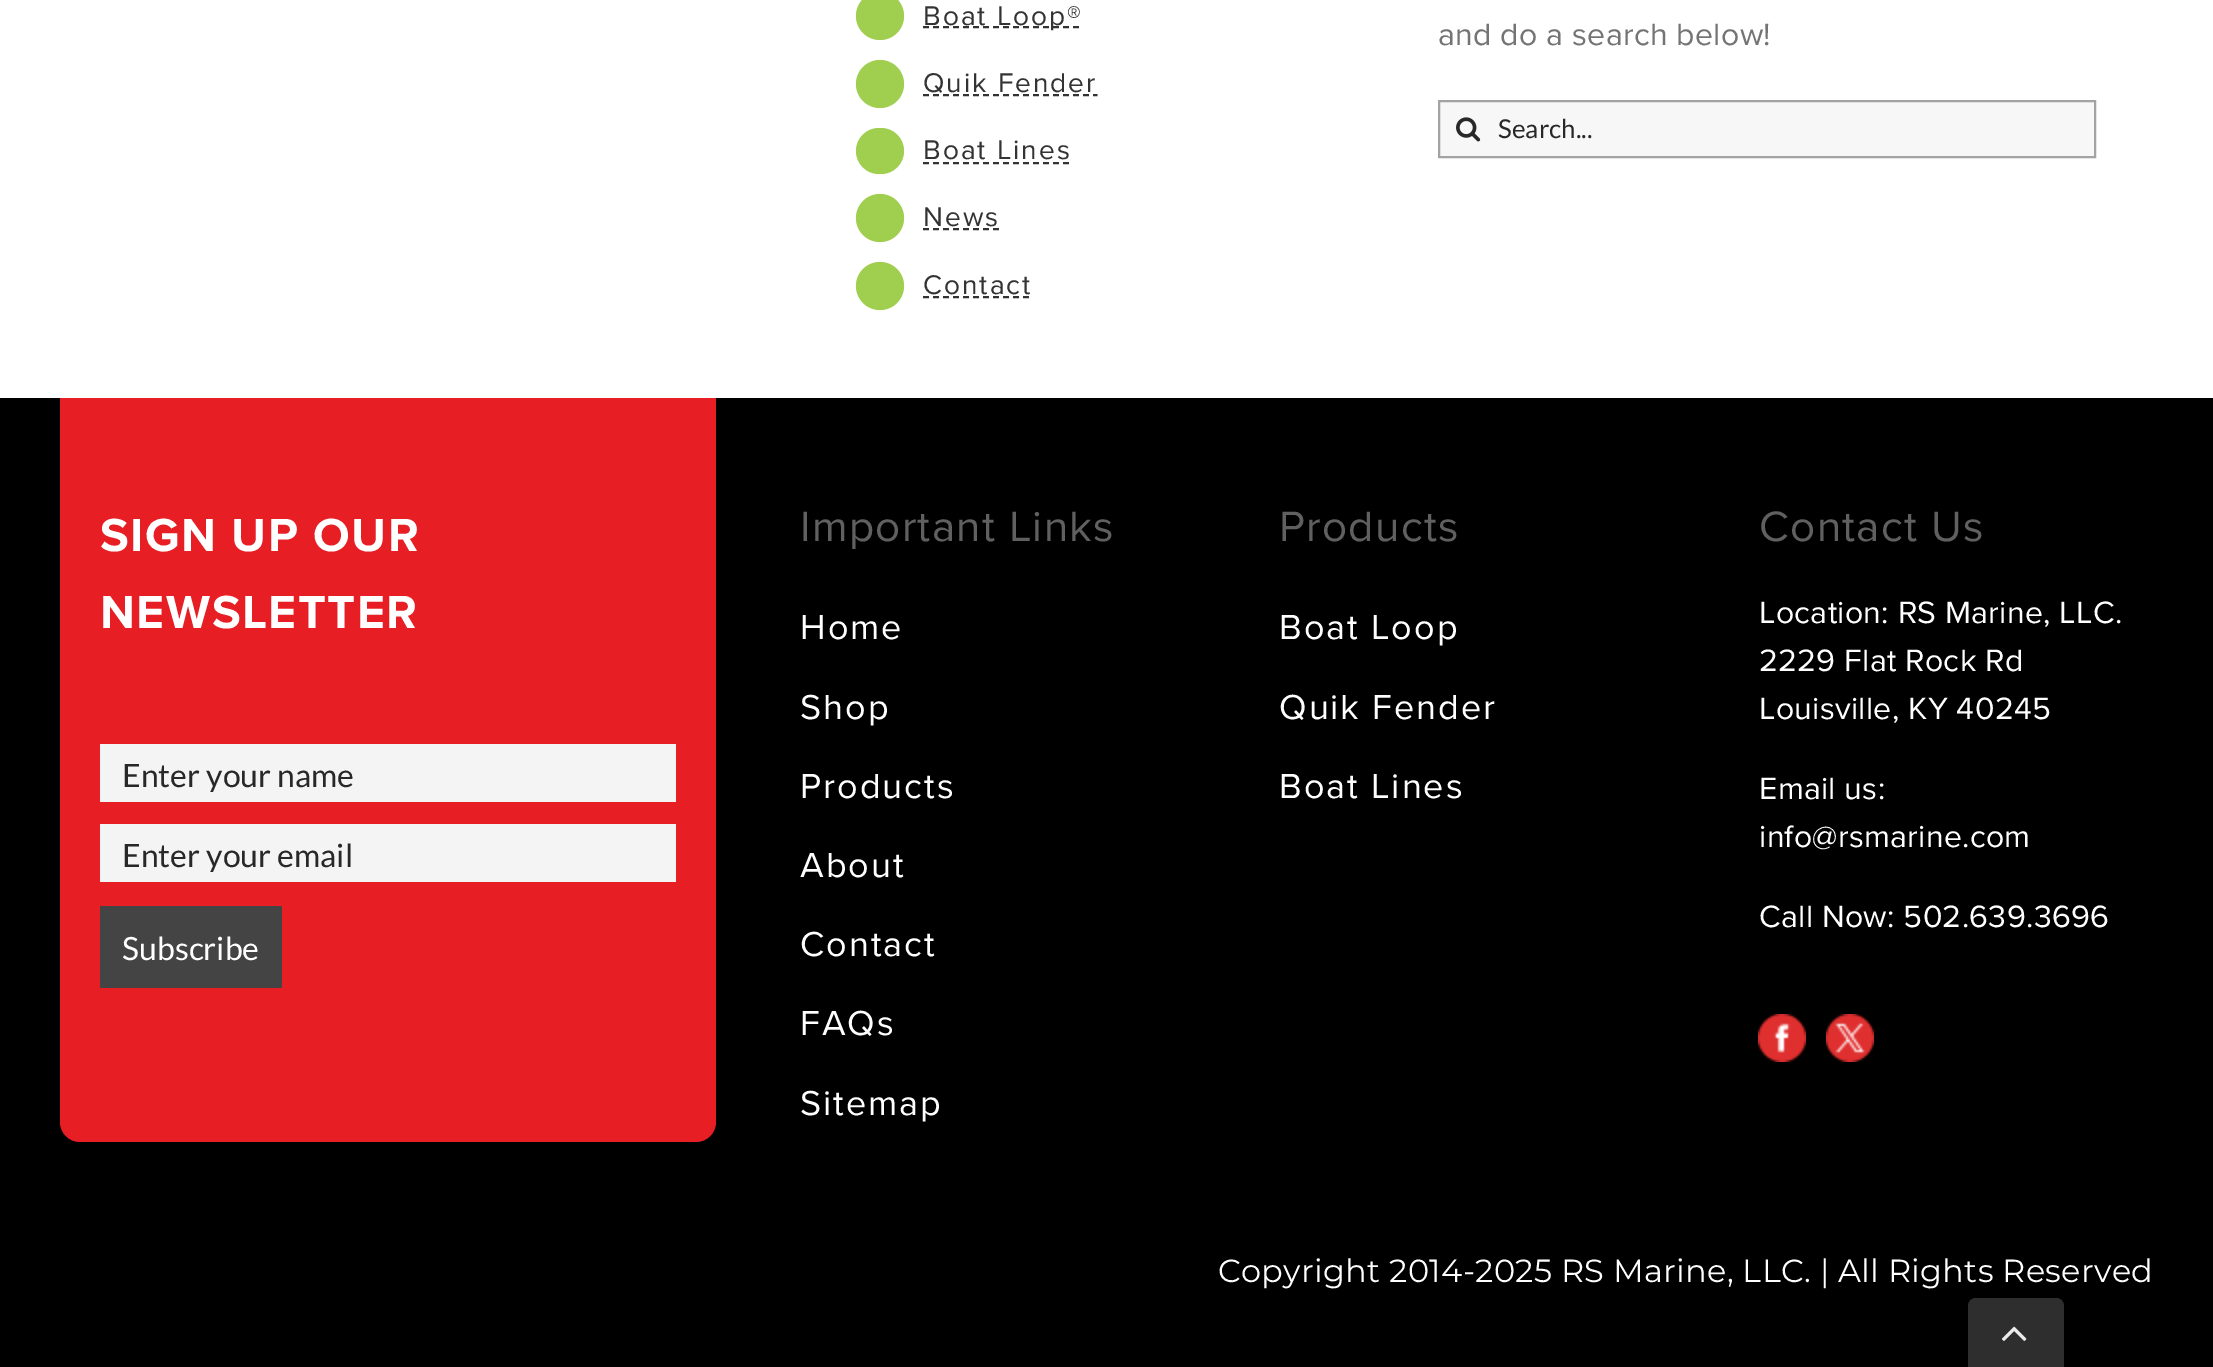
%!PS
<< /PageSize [2213 1367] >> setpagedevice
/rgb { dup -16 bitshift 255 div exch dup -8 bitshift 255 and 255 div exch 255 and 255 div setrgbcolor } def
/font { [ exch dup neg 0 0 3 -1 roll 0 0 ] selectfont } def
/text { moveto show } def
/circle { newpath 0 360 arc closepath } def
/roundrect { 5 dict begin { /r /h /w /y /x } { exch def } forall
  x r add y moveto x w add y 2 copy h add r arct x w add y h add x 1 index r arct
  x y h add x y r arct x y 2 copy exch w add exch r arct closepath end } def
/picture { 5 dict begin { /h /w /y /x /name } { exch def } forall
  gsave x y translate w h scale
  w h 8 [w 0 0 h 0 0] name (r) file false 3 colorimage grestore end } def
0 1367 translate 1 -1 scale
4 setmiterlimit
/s1 { /Lato-Regular 26 font 16#282828 rgb } def
/s2 { /Lato-Regular 32 font 16#282828 rgb } def
/s3 { /Lato-Regular 32 font 16#FFFFFF rgb } def
16#FFFFFF rgb
0 0 2213 1367 rectfill
16#A0CE4E rgb
880 16 24 circle fill
16#333333 rgb
2 setlinewidth
[6 4] 0 setdash
923 27 moveto 1083 27 lineto stroke
/ProximaNova-Regular 28 font
923 25 moveto 2 0 (Boat Loop®) ashow
16#A0CE4E rgb
880 84 24 circle fill
16#333333 rgb
923 92 moveto 2 0 (Quik Fender) ashow
923 95 moveto 1097.5 95 lineto stroke
16#A0CE4E rgb
856 128 48 46 23 roundrect fill
16#333333 rgb
923 159 moveto 2 0 (Boat Lines) ashow
923 163 moveto 1071.5 163 lineto stroke
16#A0CE4E rgb
880 218 24 circle fill
16#333333 rgb
923 226 moveto 2 0 (News) ashow
923 229 moveto 1000 229 lineto stroke
16#A0CE4E rgb
880 286 24 circle fill
16#333333 rgb
923 294 moveto 2 0 (Contact) ashow
923 297 moveto 1032.5 297 lineto stroke
/ProximaNova-Regular 32 font
16#747474 rgb
1438 45 moveto 0.32 0 (and do a search below!) ashow
16#F7F7F7 rgb
1439 101 moveto 2095 101 lineto 2095 157 lineto 1439 157 lineto closepath gsave fill grestore
16#A3A3A3 rgb
[] 0 setdash
stroke
(pic1.raw) 1456 117 25 25 picture
s1
(Search...) 1498 138 text
16#000000 rgb
0 398 2213 969 rectfill
16#E81E25 rgb
60 398 moveto 716 398 lineto 716 1122 lineto 716 1133 707 1142 696 1142 curveto 80 1142 lineto 69 1142 60 1133 60 1122 curveto closepath fill
/ProximaNova-Bold 48 font
16#FFFFFF rgb
100 551 moveto 1.5 0 (SIGN UP OUR) ashow
100 628 moveto 1.5 0 (NEWSLETTER) ashow
16#F4F4F4 rgb
100 744 576 58 rectfill
gsave
122 754 532 38 rectclip
s2
(Enter your name) 122 787 text
grestore
100 824 576 58 rectfill
gsave
122 834 532 38 rectclip
s2
(Enter your email) 122 867 text
grestore
16#444444 rgb
100 906 182 82 rectfill
s3
(Subscribe) 122 960 text
/ProximaNova-Regular 44 font
16#606060 rgb
800 541 moveto 1.3 0 (Important Links) ashow
/ProximaNova-Regular 36 font
16#FFFFFF rgb
800 639 moveto 2 0 (Home) ashow
800 719 moveto 2 0 (Shop) ashow
800 798 moveto 2 0 (Products) ashow
800 877 moveto 2 0 (About) ashow
800 956 moveto 2 0 (Contact) ashow
800 1035 moveto 2 0 (FAQs) ashow
800 1115 moveto 2 0 (Sitemap) ashow
/ProximaNova-Regular 44 font
16#606060 rgb
1279 541 moveto 1.3 0 (Products) ashow
/ProximaNova-Regular 36 font
16#FFFFFF rgb
1279 639 moveto 2 0 (Boat Loop) ashow
1279 719 moveto 2 0 (Quik Fender) ashow
1279 798 moveto 2 0 (Boat Lines) ashow
/ProximaNova-Regular 44 font
16#606060 rgb
1759 541 moveto 1.3 0 (Contact Us) ashow
/ProximaNova-Regular 32 font
16#FFFFFF rgb
1759 623 moveto 0.32 0 (Location: RS Marine, LLC.) ashow
1759 671 moveto 0.32 0 (2229 Flat Rock Rd) ashow
1759 719 moveto 0.32 0 (Louisville, KY 40245) ashow
1759 799 moveto 0.32 0 (Email us:) ashow
1759 847 moveto 0.32 0 (info@rsmarine.com) ashow
1759 927 moveto 0.32 0 (Call Now: 502.639.3696) ashow
(pic2.raw) 1758 1014 48 48 picture
(pic3.raw) 1826 1014 48 48 picture
/Montserrat-Regular 32 font
1218 1282 moveto 0.32 0 (Copyright 2014-2025 RS Marine, LLC. | All Rights Reserved) ashow
16#2E2E2E rgb
1976 1298 moveto 2056 1298 lineto 2060.5 1298 2064 1301.5 2064 1306 curveto 2064 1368 lineto 1968 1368 lineto 1968 1306 lineto 1968 1301.5 1971.5 1298 1976 1298 curveto closepath fill
(pic4.raw) 2002 1326 25 15 picture
showpage
